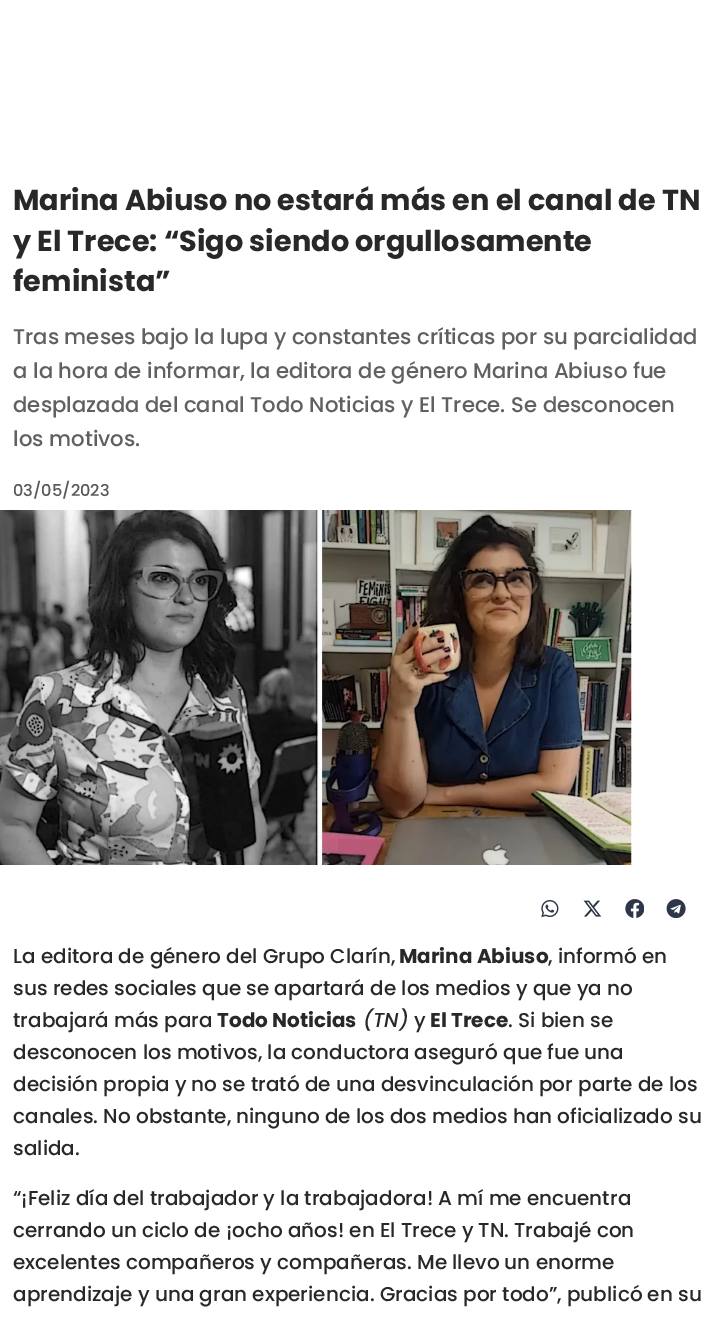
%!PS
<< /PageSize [713 1324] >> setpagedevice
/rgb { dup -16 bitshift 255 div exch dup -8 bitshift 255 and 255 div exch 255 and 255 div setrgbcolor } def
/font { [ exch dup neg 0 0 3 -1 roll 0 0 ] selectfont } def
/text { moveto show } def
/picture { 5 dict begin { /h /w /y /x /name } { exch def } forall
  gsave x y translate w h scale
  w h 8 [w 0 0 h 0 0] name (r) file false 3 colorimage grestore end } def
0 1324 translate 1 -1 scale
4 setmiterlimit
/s1 { /Poppins-Bold 28.75 font 16#282828 rgb } def
/s2 { /Poppins-Medium 21.25 font 16#606060 rgb } def
/s3 { /Poppins-Medium 16.25 font 16#5A5858 rgb } def
/s4 { /Poppins-Medium 20 font 16#282828 rgb } def
/s5 { /Poppins-Bold 20 font 16#282828 rgb } def
/s6 { /Poppins-MediumItalic 20 font 16#282828 rgb } def
16#FFFFFF rgb
0 0 713 1324 rectfill
s1
(Marina Abiuso no estará más en el canal de TN) 13 210 text
(y El Trece: “Sigo siendo orgullosamente) 13 251 text
(feminista”) 13 291 text
s2
(Tras meses bajo la lupa y constantes críticas por su parcialidad) 13 344 text
(a la hora de informar, la editora de género Marina Abiuso fue) 13 378 text
(desplazada del canal Todo Noticias y El Trece. Se desconocen) 13 412 text
(los motivos.) 13 446 text
s3
(03/05/2023) 13 496 text
(pic1.raw) 0 510 632 355 picture
(pic2.raw) 541 900 18 18 picture
(pic3.raw) 583 900 19 17 picture
(pic4.raw) 625 899 19 19 picture
(pic5.raw) 666 899 20 19 picture
s4
(La editora de género del Grupo Clarín,) 13 963 text
s5
(Marina Abiuso) 399 963 text
s4
(, informó en) 548 963 text
(sus redes sociales que se apartará de los medios y que ya no) 13 995 text
(trabajará más para) 13 1027 text
s5
(Todo Noticias) 217 1027 text
s6
(\(TN\)) 363 1027 text
s4
(y) 414 1027 text
s5
(El Trece) 430 1027 text
s4
(. Si bien se) 508 1027 text
(desconocen los motivos, la conductora aseguró que fue una) 13 1059 text
(decisión propia y no se trató de una desvinculación por parte de los) 13 1091 text
(canales. No obstante, ninguno de los dos medios han oficializado su) 13 1123 text
(salida.) 13 1155 text
(“¡Feliz día del trabajador y la trabajadora! A mí me encuentra) 13 1205 text
(cerrando un ciclo de ¡ocho años! en El Trece y TN. Trabajé con) 13 1237 text
(excelentes compañeros y compañeras. Me llevo un enorme) 13 1269 text
(aprendizaje y una gran experiencia. Gracias por todo”, publicó en su) 13 1301 text
showpage
